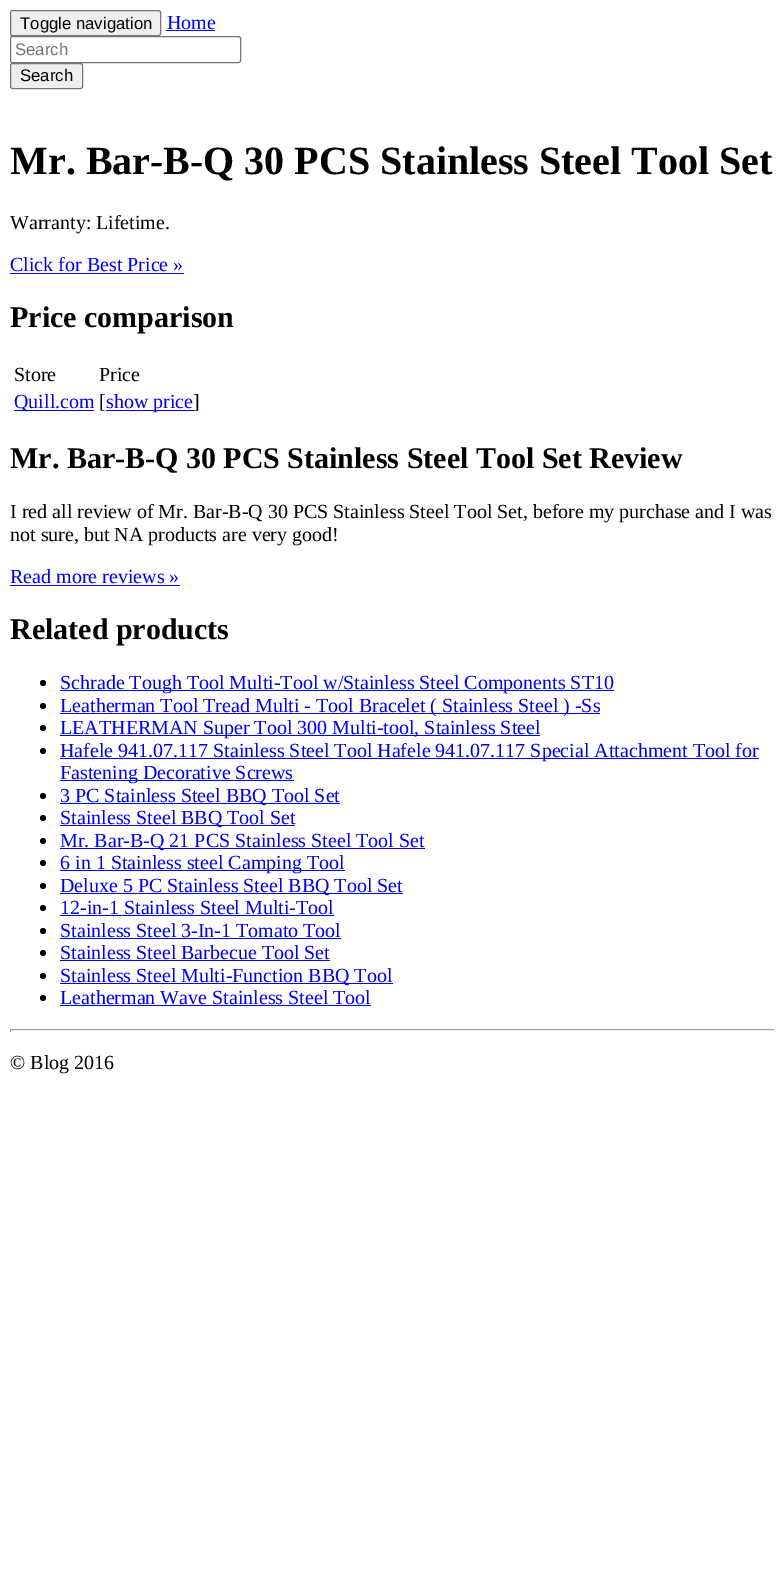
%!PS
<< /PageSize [784 1575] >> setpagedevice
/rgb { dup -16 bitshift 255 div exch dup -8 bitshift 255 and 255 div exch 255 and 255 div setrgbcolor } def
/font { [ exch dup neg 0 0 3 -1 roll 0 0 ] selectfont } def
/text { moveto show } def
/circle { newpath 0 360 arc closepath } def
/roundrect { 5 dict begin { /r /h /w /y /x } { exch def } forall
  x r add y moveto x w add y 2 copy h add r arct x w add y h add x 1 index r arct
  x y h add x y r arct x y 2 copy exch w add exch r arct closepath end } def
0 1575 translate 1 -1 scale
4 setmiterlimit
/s1 { /LiberationSans-Regular 16.75 font 16#000000 rgb } def
/s2 { /LiberationSerif-Regular 20 font 16#0000EE rgb } def
/s3 { /LiberationSans-Regular 16.75 font 16#757575 rgb } def
/s4 { /LiberationSerif-Bold 40 font 16#000000 rgb } def
/s5 { /LiberationSerif-Regular 20 font 16#000000 rgb } def
/s6 { /LiberationSerif-Bold 30 font 16#000000 rgb } def
16#FFFFFF rgb
0 0 784 1575 rectfill
16#EFEFEF rgb
10.5 10.5 150 25 2 roundrect gsave fill grestore
16#767676 rgb
stroke
s1
(Toggle navigation) 20 29 text
s2
(Home) 167 29 text
166 30 49 1 rectfill
16#767676 rgb
10.5 36.5 230 26 2 roundrect stroke
s3
(Search) 15 55 text
16#EFEFEF rgb
10.5 63.5 72 25 2 roundrect gsave fill grestore
16#767676 rgb
stroke
s1
(Search) 20 81 text
s4
(Mr. Bar-B-Q 30 PCS Stainless Steel Tool Set) 10 174 text
s5
(Warranty: Lifetime.) 10 229 text
s2
(Click for Best Price ») 10 271 text
10 273 174 1 rectfill
s6
(Price comparison) 10 327 text
s5
(Store) 14 381 text
(Price) 99 381 text
16#0000EE rgb
14 410 80 1 rectfill
(Quill.com) 14 408 text
s5
([) 99 408 text
16#0000EE rgb
106 410 88 1 rectfill
(show price) 106 408 text
s5
(]) 193 408 text
s6
(Mr. Bar-B-Q 30 PCS Stainless Steel Tool Set Review) 10 468 text
s5
(I red all review of Mr. Bar-B-Q 30 PCS Stainless Steel Tool Set, before my purchase and I was) 10 518 text
(not sure, but NA products are very good!) 10 541 text
s2
(Read more reviews ») 10 583 text
10 585 170 1 rectfill
s6
(Related products) 10 639 text
43 683 3 circle fill
16#0000EE rgb
60 690 554 1 rectfill
s2
(Schrade Tough Tool Multi-Tool w/Stainless Steel Components ST10) 60 689 text
16#000000 rgb
43 706 3 circle fill
16#0000EE rgb
60 713 540 1 rectfill
(Leatherman Tool Tread Multi - Tool Bracelet \( Stainless Steel \) -Ss) 60 712 text
16#000000 rgb
43 728 3 circle fill
16#0000EE rgb
60 735 480 1 rectfill
(LEATHERMAN Super Tool 300 Multi-tool, Stainless Steel) 60 734 text
16#000000 rgb
43 751 3 circle fill
16#0000EE rgb
60 758 699 1 rectfill
(Hafele 941.07.117 Stainless Steel Tool Hafele 941.07.117 Special Attachment Tool for) 60 757 text
60 780 234 1 rectfill
(Fastening Decorative Screws) 60 779 text
16#000000 rgb
43 796 3 circle fill
16#0000EE rgb
60 803 280 1 rectfill
(3 PC Stainless Steel BBQ Tool Set) 60 802 text
16#000000 rgb
43 818 3 circle fill
16#0000EE rgb
60 825 235 1 rectfill
(Stainless Steel BBQ Tool Set) 60 824 text
16#000000 rgb
43 841 3 circle fill
16#0000EE rgb
60 848 365 1 rectfill
(Mr. Bar-B-Q 21 PCS Stainless Steel Tool Set) 60 847 text
16#000000 rgb
43 863 3 circle fill
16#0000EE rgb
60 870 285 1 rectfill
(6 in 1 Stainless steel Camping Tool) 60 869 text
16#000000 rgb
43 886 3 circle fill
16#0000EE rgb
60 893 343 1 rectfill
(Deluxe 5 PC Stainless Steel BBQ Tool Set) 60 892 text
16#000000 rgb
43 908 3 circle fill
s2
(12-in-1 Stainless Steel Multi-Tool) 60 914 text
60 915 274 1 rectfill
16#000000 rgb
43 931 3 circle fill
s2
(Stainless Steel 3-In-1 Tomato Tool) 60 937 text
60 938 281 1 rectfill
16#000000 rgb
43 953 3 circle fill
s2
(Stainless Steel Barbecue Tool Set) 60 959 text
60 960 270 1 rectfill
16#000000 rgb
43 976 3 circle fill
16#0000EE rgb
60 983 333 1 rectfill
(Stainless Steel Multi-Function BBQ Tool) 60 982 text
16#000000 rgb
43 998 3 circle fill
s2
(Leatherman Wave Stainless Steel Tool) 60 1004 text
60 1005 311 1 rectfill
16#9F9F9F rgb
10 1029 765 1 rectfill
16#EEEEEE rgb
774 1029 1 3 rectfill
10 1030 765 1 rectfill
16#9F9F9F rgb
10 1029 1 3 rectfill
s5
(© Blog 2016) 10 1069 text
showpage
